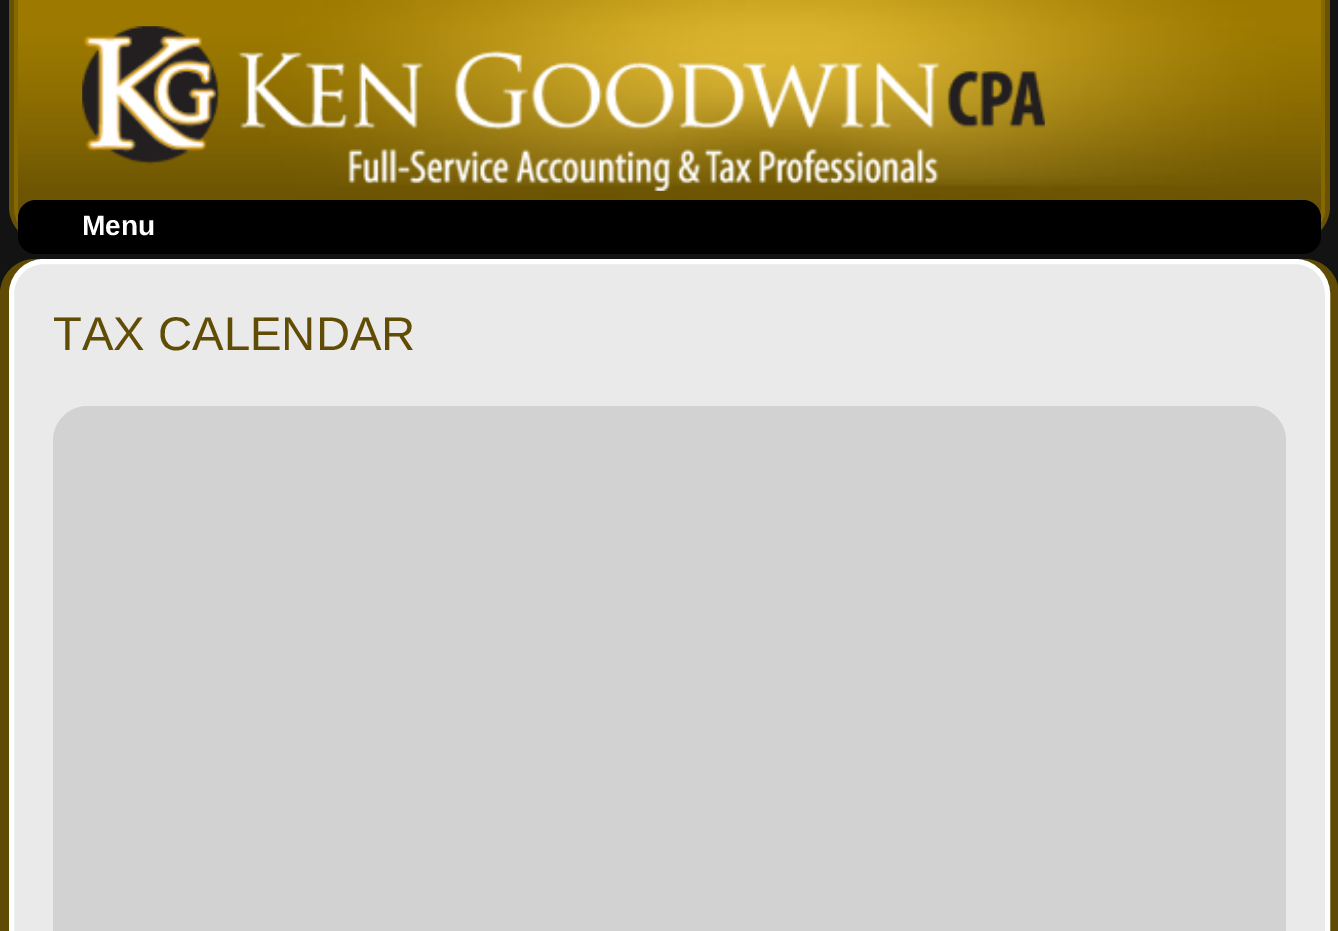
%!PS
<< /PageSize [1338 931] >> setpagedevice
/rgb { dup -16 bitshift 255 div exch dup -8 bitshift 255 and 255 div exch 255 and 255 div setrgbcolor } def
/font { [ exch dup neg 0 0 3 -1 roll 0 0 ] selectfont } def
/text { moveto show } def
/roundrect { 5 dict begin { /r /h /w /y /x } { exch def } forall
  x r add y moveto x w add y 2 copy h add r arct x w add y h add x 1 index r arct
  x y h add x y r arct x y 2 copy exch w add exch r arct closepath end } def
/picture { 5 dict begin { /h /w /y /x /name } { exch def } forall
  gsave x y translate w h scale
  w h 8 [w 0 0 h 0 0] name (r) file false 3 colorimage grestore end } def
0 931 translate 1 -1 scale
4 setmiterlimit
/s1 { /LiberationSans-Bold 28 font 16#FFFFFF rgb } def
/s2 { /LiberationSans-Regular 47.25 font 16#604C04 rgb } def
16#FFFFFF rgb
0 0 1338 931 rectfill
(pic1.raw) 0 0 1338 294 picture
16#695204 rgb
9 0 moveto 1330 0 lineto 1330 206 lineto 1330 226 1314 242 1295 242 curveto 44 242 lineto 24 242 9 226 9 206 curveto closepath 14 0 moveto 1325 0 lineto 1325 206 lineto 1325 223 1311 236 1295 236 curveto 44 236 lineto 27 236 14 223 14 206 curveto closepath eofill
(pic2.raw) 17 0 1308 223 picture
16#866802 rgb
1325 0 moveto 1325 212 lineto 1324 218 1321 224 1317 228 curveto 1314 226 lineto 1318 221 1321 215 1321 208 curveto 1321 0 lineto closepath fill
14 0 moveto 18 0 lineto 18 208 lineto 18 215 20 221 25 226 curveto 22 228 lineto 17 223 14 216 14 208 curveto closepath fill
(pic3.raw) 82 26 963 165 picture
16#000000 rgb
18 200 1303 54 18 roundrect fill
s1
(Menu) 82 235 text
16#5F4B04 rgb
0 259 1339 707 35 roundrect fill
16#EAEAEA rgb
11.5 261.5 1316 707 32.5 roundrect gsave fill grestore
16#FFFFFF rgb
5 setlinewidth
stroke
s2
(TAX CALENDAR) 53 350 text
16#D2D2D2 rgb
53 406 1233 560 35 roundrect fill
showpage
